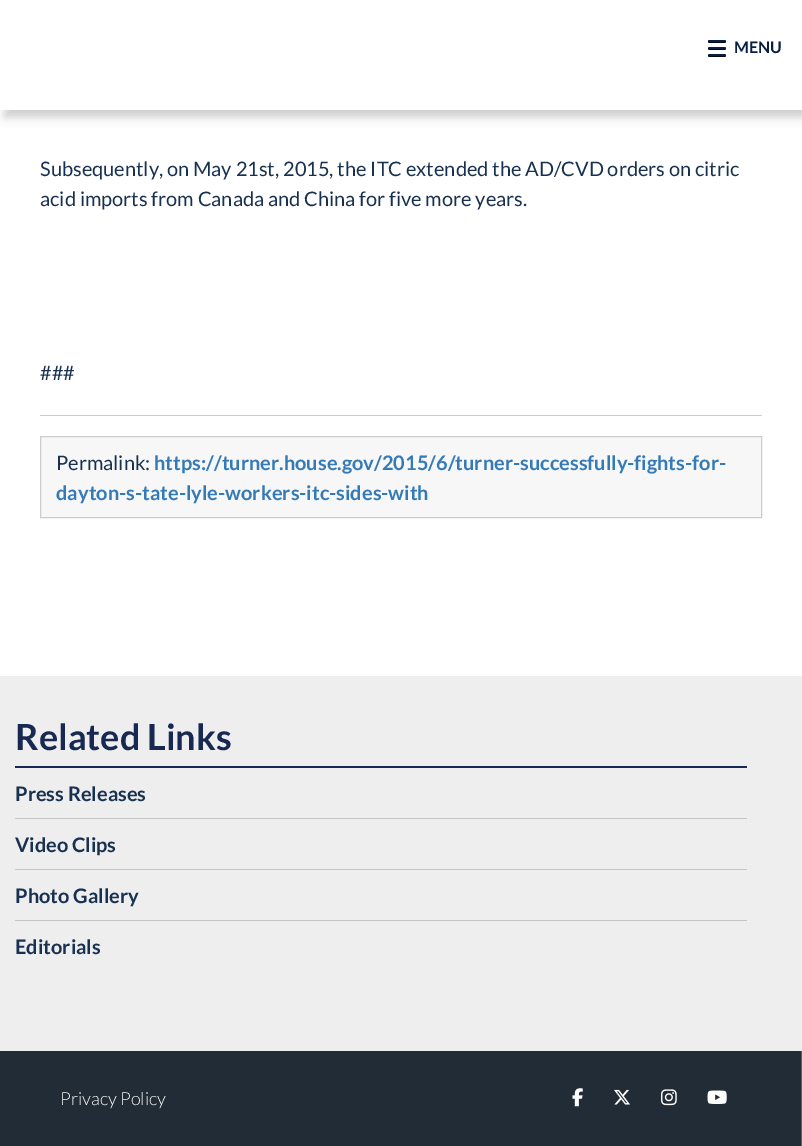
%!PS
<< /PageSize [802 1146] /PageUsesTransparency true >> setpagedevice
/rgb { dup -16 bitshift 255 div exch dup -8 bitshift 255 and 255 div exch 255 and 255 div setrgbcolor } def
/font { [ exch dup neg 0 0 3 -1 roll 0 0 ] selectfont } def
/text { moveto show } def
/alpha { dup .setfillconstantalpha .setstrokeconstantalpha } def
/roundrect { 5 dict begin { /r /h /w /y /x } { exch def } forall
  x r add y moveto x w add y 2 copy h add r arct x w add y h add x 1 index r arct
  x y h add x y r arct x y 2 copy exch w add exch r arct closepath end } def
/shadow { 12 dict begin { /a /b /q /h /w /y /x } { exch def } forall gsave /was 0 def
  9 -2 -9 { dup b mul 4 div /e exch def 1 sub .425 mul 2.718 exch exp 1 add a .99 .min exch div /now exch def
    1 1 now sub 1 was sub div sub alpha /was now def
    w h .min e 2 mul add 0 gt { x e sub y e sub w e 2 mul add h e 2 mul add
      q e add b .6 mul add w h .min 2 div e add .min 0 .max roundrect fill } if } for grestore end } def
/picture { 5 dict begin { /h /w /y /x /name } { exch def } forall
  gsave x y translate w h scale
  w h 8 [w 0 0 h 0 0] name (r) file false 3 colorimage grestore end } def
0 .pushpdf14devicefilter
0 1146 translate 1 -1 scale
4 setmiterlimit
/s1 { /Lato-Bold 16 font 16#081F43 rgb } def
/s2 { /Lato-Regular 20 font 16#183151 rgb } def
/s3 { /Lato-Bold 20 font 16#337AB7 rgb } def
/s4 { /Lato-Bold 36 font 16#172952 rgb } def
/s5 { /Lato-Bold 20 font 16#183151 rgb } def
/s6 { /Lato-Light 18 font 16#FFFFFF rgb } def
16#FFFFFF rgb
0 0 802 1146 rectfill
16#333333 rgb
5 7 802 110 0 5 0.25 shadow
16#FFFFFF rgb
0 0 802 110 rectfill
16#081F43 rgb
708 40 18 3 1.5 roundrect fill
0.75 alpha
16#000000 rgb
709 42 16 1 rectfill
1 alpha
16#050A13 rgb
708 41 1 1 rectfill
16#081F43 rgb
708 47 18 3 1.5 roundrect fill
0.75 alpha
16#000000 rgb
709 49 16 1 rectfill
1 alpha
16#050A13 rgb
708 48 1 1 rectfill
16#081F43 rgb
708 54 18 3 1.5 roundrect fill
0.75 alpha
16#000000 rgb
709 56 16 1 rectfill
1 alpha
16#050A13 rgb
708 55 1 1 rectfill
s1
(MENU) 734 53 text
s2
(Subsequently, on May 21st, 2015, the ITC extended the AD/CVD orders on citric) 40 176 text
(acid imports from Canada and China for five more years.) 40 206 text
(###) 40 380 text
16#CCCCCC rgb
40 415 722 1 rectfill
16#F7F7F7 rgb
40.5 436.5 moveto 761.5 436.5 lineto 761.5 517.5 lineto 40.5 517.5 lineto closepath gsave fill grestore
16#CCCCCC rgb
stroke
s2
(Permalink:) 56 470 text
s3
(https://turner.house.gov/2015/6/turner-successfully-fights-for-) 154 470 text
(dayton-s-tate-lyle-workers-itc-sides-with) 56 500 text
16#EEEEEE rgb
0 676 802 375 rectfill
16#172952 rgb
15 766 732 2 rectfill
s4
(Related Links) 15 750 text
s5
(Press Releases) 15 801 text
16#C4C4C4 rgb
15 818 732 1 rectfill
s5
(Video Clips) 15 852 text
16#C4C4C4 rgb
15 869 732 1 rectfill
s5
(Photo Gallery) 15 903 text
16#C4C4C4 rgb
15 920 732 1 rectfill
s5
(Editorials) 15 954 text
16#222C36 rgb
0 1051 801 95 rectfill
16#596168 rgb
801 1051 1 95 rectfill
s6
(Privacy Policy) 60 1105 text
(pic1.raw) 572 1088 11 19 picture
(pic2.raw) 614 1089 16 16 picture
(pic3.raw) 661 1089 16 17 picture
(pic4.raw) 707 1090 20 14 picture
.poppdf14devicefilter showpage
